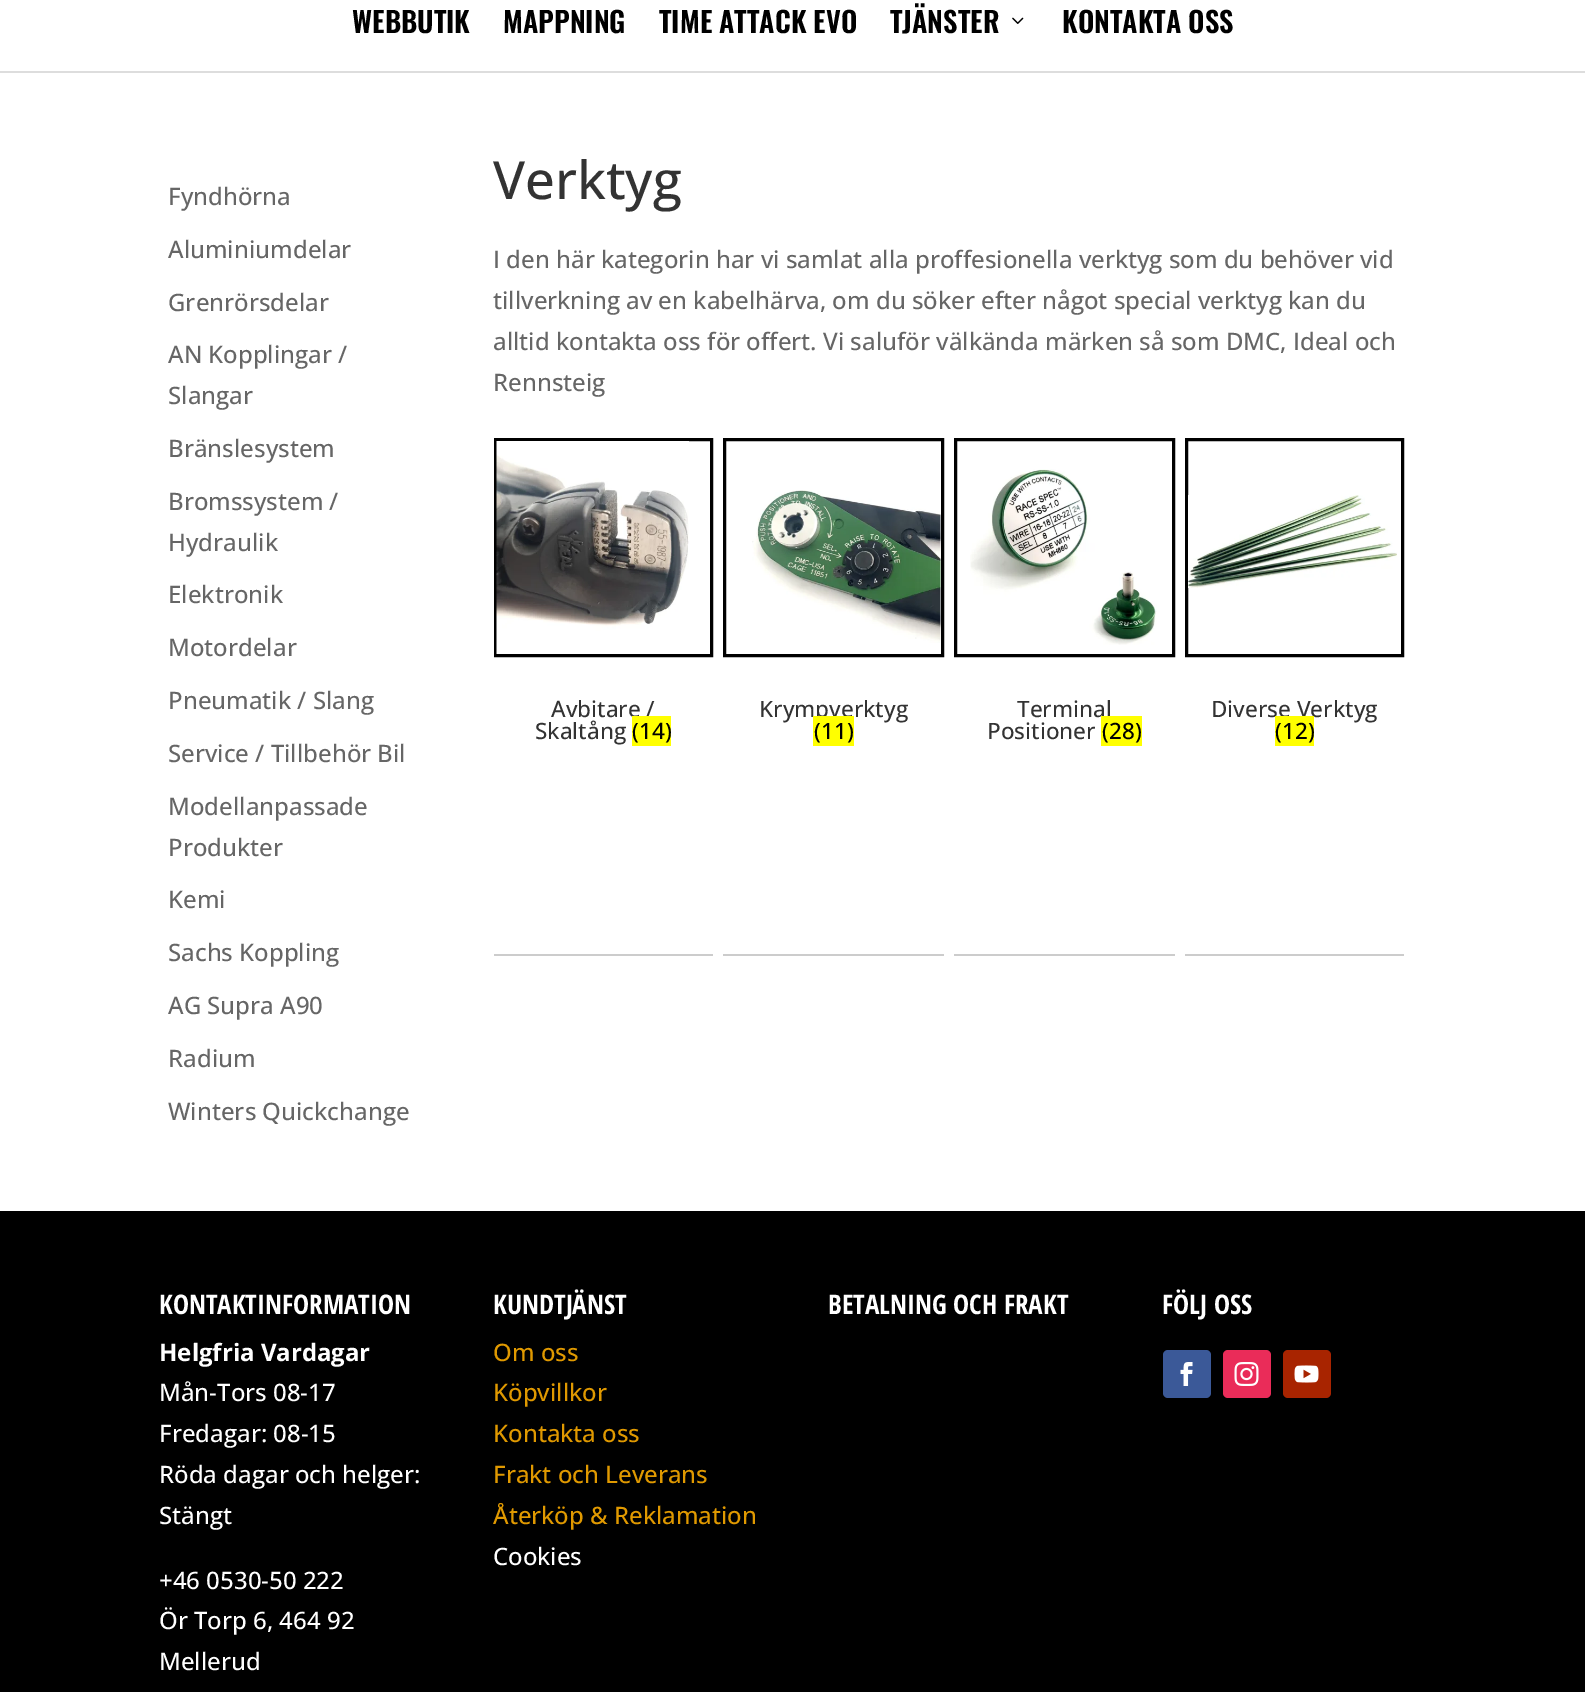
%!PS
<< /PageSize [1585 1692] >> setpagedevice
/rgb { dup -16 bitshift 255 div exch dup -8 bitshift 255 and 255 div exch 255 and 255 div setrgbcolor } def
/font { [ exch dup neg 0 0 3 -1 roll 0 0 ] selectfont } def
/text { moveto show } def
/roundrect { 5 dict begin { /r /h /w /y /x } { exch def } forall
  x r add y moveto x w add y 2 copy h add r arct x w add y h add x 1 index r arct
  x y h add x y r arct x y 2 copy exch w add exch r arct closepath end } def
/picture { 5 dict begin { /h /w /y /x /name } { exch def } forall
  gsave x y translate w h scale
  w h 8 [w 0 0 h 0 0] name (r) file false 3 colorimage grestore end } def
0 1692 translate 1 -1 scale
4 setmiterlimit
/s1 { /Oswald-SemiBold 28.5 font 16#000000 rgb } def
/s2 { /OpenSans-Medium 24 font 16#666666 rgb } def
/s3 { /OpenSans-Medium 52.5 font 16#333333 rgb } def
/s4 { /OpenSans-Medium 22.5 font 16#333333 rgb } def
/s5 { /OpenSans-Medium 22.5 font 16#000000 rgb } def
/s6 { /OpenSansCondensed-Bold 27 font 16#FFFFFF rgb } def
/s7 { /OpenSans-Bold 24 font 16#FFFFFF rgb } def
/s8 { /OpenSans-Medium 24 font 16#FFFFFF rgb } def
/s9 { /OpenSans-Medium 24 font 16#E09900 rgb } def
16#FFFFFF rgb
0 0 1585 1692 rectfill
16#DDDDDD rgb
0 71 1585 2 rectfill
s1
(WEBBUTIK) 352 33 text
(MAPPNING) 503 33 text
(TIME ATTACK EVO) 659 33 text
(TJÄNSTER) 890 33 text
(pic1.raw) 1012 17 12 7 picture
(KONTAKTA OSS) 1062 33 text
s2
(Fyndhörna) 168 205 text
(Aluminiumdelar) 168 258 text
(Grenrörsdelar) 168 311 text
(AN Kopplingar /) 168 363 text
(Slangar) 168 404 text
(Bränslesystem) 168 457 text
(Bromssystem /) 168 510 text
(Hydraulik) 168 551 text
(Elektronik) 168 603 text
(Motordelar) 168 656 text
(Pneumatik / Slang) 168 709 text
(Service / Tillbehör Bil) 168 762 text
(Modellanpassade) 168 815 text
(Produkter) 168 856 text
(Kemi) 168 908 text
(Sachs Koppling) 168 961 text
(AG Supra A90) 168 1014 text
(Radium) 168 1067 text
(Winters Quickchange) 168 1120 text
s3
(Verktyg) 493 199 text
s2
(I den här kategorin har vi samlat alla proffesionella verktyg som du behöver vid) 493 268 text
(tillverkning av en kabelhärva, om du söker efter något special verktyg kan du) 493 309 text
(alltid kontakta oss för offert. Vi saluför välkända märken så som DMC, Ideal och) 493 350 text
(Rennsteig) 493 391 text
16#CCCCCC rgb
494 954 219 2 rectfill
16#000000 rgb
3 setlinewidth
495.5 439.5 216 216 rectstroke
(pic2.raw) 496 441 193 213 picture
s4
(Avbitare /) 551 717 text
(Skaltång) 535 739 text
16#FFFF00 rgb
632 716 39 30 rectfill
s5
(\(14\)) 632 739 text
16#CCCCCC rgb
723 954 221 2 rectfill
16#000000 rgb
724.5 439.5 218 216 rectstroke
(pic3.raw) 752 490 189 153 picture
s4
(Krympverktyg) 759 717 text
16#FFFF00 rgb
813 716 41 30 rectfill
s5
(\(11\)) 814 739 text
16#CCCCCC rgb
954 954 221 2 rectfill
16#000000 rgb
955.5 439.5 218 216 rectstroke
(pic4.raw) 970 469 187 176 picture
s4
(Terminal) 1017 717 text
(Positioner) 987 739 text
16#FFFF00 rgb
1101 716 41 30 rectfill
s5
(\(28\)) 1102 739 text
16#CCCCCC rgb
1185 954 219 2 rectfill
16#000000 rgb
1186.5 439.5 216 216 rectstroke
(pic5.raw) 1188 495 209 93 picture
s4
(Diverse Verktyg) 1211 717 text
16#FFFF00 rgb
1275 716 39 30 rectfill
s5
(\(12\)) 1275 739 text
0 1211 1585 481 rectfill
s6
(KONTAKTINFORMATION) 159 1314 text
s7
(Helgfria Vardagar) 159 1361 text
s8
(Mån-Tors 08-17) 159 1401 text
(Fredagar: 08-15) 159 1442 text
(Röda dagar och helger:) 159 1483 text
(Stängt) 159 1524 text
(+46 0530-50 222) 159 1589 text
(Ör Torp 6, 464 92) 159 1629 text
(Mellerud) 159 1670 text
s6
(KUNDTJÄNST) 493 1314 text
s9
(Om oss) 493 1361 text
(Köpvillkor) 493 1401 text
(Kontakta oss) 493 1442 text
(Frakt och Leverans) 493 1483 text
(Återköp & Reklamation) 493 1524 text
s8
(Cookies) 493 1565 text
s6
(BETALNING OCH FRAKT) 828 1314 text
(FÖLJ OSS) 1162 1314 text
16#3B5998 rgb
1163 1350 48 48 5 roundrect fill
(pic6.raw) 1180 1362 13 24 picture
16#EA2C59 rgb
1223 1350 48 48 5 roundrect fill
(pic7.raw) 1234 1362 25 24 picture
16#A82400 rgb
1283 1350 48 48 5 roundrect fill
(pic8.raw) 1294 1365 25 18 picture
showpage
